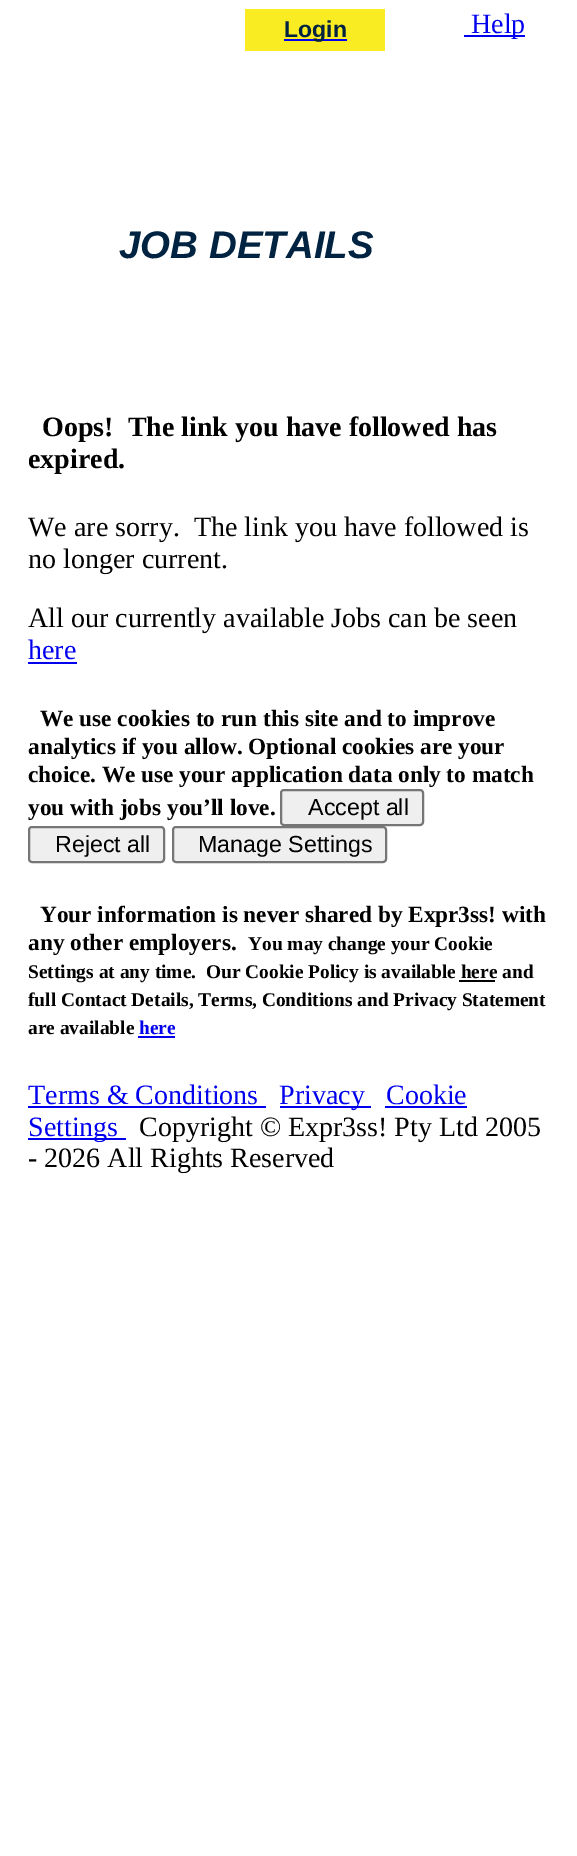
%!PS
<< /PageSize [577 1856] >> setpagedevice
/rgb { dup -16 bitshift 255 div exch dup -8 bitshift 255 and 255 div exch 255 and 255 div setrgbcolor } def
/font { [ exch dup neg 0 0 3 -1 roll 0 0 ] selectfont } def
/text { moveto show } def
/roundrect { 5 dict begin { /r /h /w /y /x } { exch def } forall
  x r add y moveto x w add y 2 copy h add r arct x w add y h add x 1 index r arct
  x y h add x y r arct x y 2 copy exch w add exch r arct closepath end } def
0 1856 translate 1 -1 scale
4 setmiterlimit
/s1 { /LiberationSans-Bold 23 font 16#002341 rgb } def
/s2 { /LiberationSerif-Regular 28 font 16#0000EE rgb } def
/s3 { /LiberationSans-BoldItalic 38.5 font 16#002341 rgb } def
/s4 { /LiberationSerif-Bold 28 font 16#000000 rgb } def
/s5 { /LiberationSerif-Regular 28 font 16#000000 rgb } def
/s6 { /LiberationSerif-Bold 23.25 font 16#000000 rgb } def
/s7 { /LiberationSans-Regular 23.25 font 16#000000 rgb } def
/s8 { /LiberationSerif-Bold 19.4 font 16#000000 rgb } def
/s9 { /LiberationSerif-Bold 19.4 font 16#0000EE rgb } def
16#FFFFFF rgb
0 0 577 1856 rectfill
16#F9EC23 rgb
245 9 140 42 rectfill
16#0000EE rgb
284 39 63 2 rectfill
s1
(Login) 284 37 text
16#0000EE rgb
464 35 61 2 rectfill
s2
(Help) 471 33 text
s3
(JOB DETAILS) 119 258 text
s4
(Oops!  The link you have followed has) 42 436 text
(expired.) 28 468 text
s5
(We are sorry.  The link you have followed is) 28 536 text
(no longer current.) 28 568 text
(All our currently available Jobs can be seen) 28 627 text
s2
(here) 28 659 text
28 662 49 2 rectfill
s6
(We use cookies to run this site and to improve) 40 726 text
(analytics if you allow. Optional cookies are your) 28 754 text
(choice. We use your application data only to match) 28 782 text
(you with jobs you’ll love.) 28 815 text
16#EFEFEF rgb
281 790 142 35 3 roundrect gsave fill grestore
16#767676 rgb
2 setlinewidth
stroke
s7
(Accept all) 308 815 text
16#EFEFEF rgb
29 827 135 35 3 roundrect gsave fill grestore
16#767676 rgb
stroke
s7
(Reject all) 55 852 text
16#EFEFEF rgb
173 827 213 35 3 roundrect gsave fill grestore
16#767676 rgb
stroke
s7
(Manage Settings) 198 852 text
s6
(Your information is never shared by Expr3ss! with) 40 922 text
(any other employers.) 28 950 text
s8
(You may change your Cookie) 248 950 text
(Settings at any time.  Our Cookie Policy is available here and) 28 978 text
459 980 36 2 rectfill
(full Contact Details, Terms, Conditions and Privacy Statement) 28 1006 text
(are available) 28 1034 text
s9
(here) 139 1034 text
138 1036 37 2 rectfill
s2
(Terms & Conditions) 28 1104 text
28 1106 238 2 rectfill
280 1106 91 2 rectfill
(Privacy) 279 1104 text
(Cookie) 386 1104 text
385 1106 82 2 rectfill
28 1138 98 2 rectfill
(Settings) 28 1136 text
s5
(Copyright © Expr3ss! Pty Ltd 2005) 139 1136 text
(- 2026 All Rights Reserved) 28 1167 text
showpage
